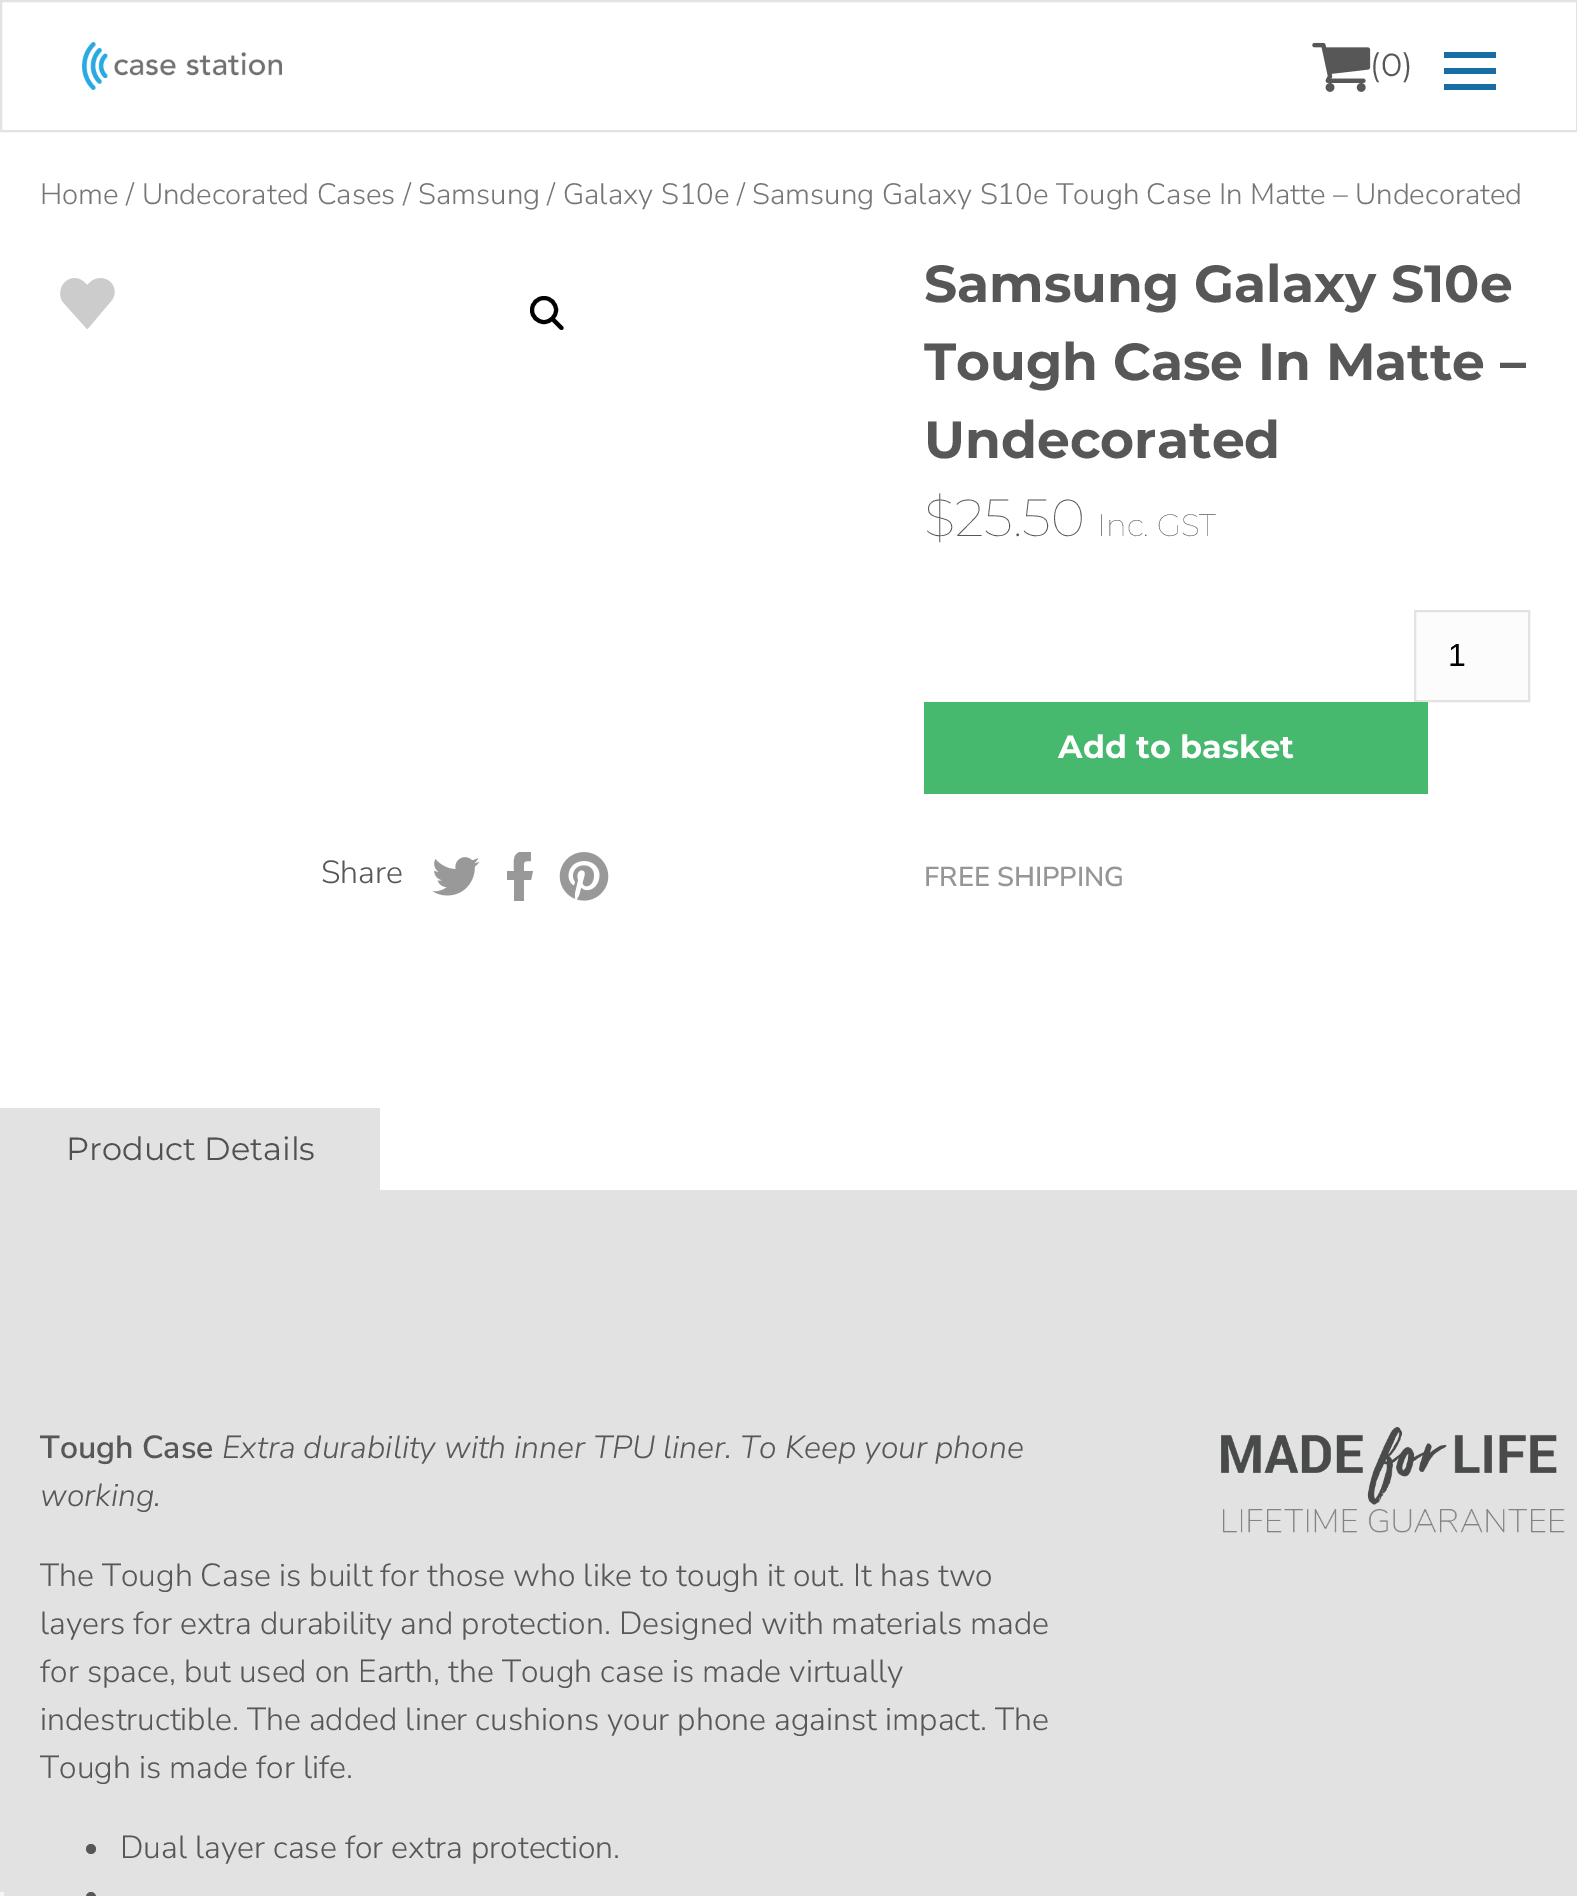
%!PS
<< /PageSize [1577 1896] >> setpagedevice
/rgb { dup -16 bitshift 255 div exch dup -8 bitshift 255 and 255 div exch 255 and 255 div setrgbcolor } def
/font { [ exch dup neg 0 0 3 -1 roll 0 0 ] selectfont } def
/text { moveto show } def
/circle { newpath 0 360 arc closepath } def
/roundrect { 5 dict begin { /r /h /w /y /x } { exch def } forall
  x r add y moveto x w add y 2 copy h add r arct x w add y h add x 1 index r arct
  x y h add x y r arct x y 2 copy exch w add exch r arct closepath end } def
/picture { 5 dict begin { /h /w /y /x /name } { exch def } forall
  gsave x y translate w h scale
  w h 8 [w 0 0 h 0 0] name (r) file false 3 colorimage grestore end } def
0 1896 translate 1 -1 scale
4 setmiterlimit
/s1 { /Montserrat-Regular 32 font 16#575757 rgb } def
/s2 { /NunitoSans-Light 29.45 font 16#767676 rgb } def
/s3 { /Montserrat-Bold 52 font 16#575757 rgb } def
/s4 { /Montserrat-Thin 52 font 16#575757 rgb } def
/s5 { /Montserrat-Thin 31 font 16#575757 rgb } def
/s6 { /LiberationSans-Regular 32 font 16#000000 rgb } def
/s7 { /Montserrat-Bold 32 font 16#FFFFFF rgb } def
/s8 { /NunitoSans-SemiBold 27.25 font 16#969696 rgb } def
/s9 { /NunitoSans-Light 32 font 16#575757 rgb } def
/s10 { /Montserrat-Regular 32 font 16#515151 rgb } def
/s11 { /NunitoSans-SemiBold 32 font 16#575757 rgb } def
/s12 { /NunitoSans-LightItalic 32 font 16#575757 rgb } def
16#FFFFFF rgb
0 0 1577 1896 rectfill
16#E2E2E2 rgb
2 setlinewidth
1 1 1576 130 rectstroke
(pic1.raw) 82 42 200 48 picture
(pic2.raw) 1312 42 59 50 picture
s1
(\(0\)) 1370 76 text
16#176DA5 rgb
1444 52 52 6 rectfill
1444 68 52 6 rectfill
1444 84 52 6 rectfill
s2
(Home / Undecorated Cases / Samsung / Galaxy S10e / Samsung Galaxy S10e Tough Case In Matte – Undecorated) 40 204 text
(pic3.raw) 60 278 55 51 picture
s3
(Samsung Galaxy S10e) 924 302 text
(Tough Case In Matte –) 924 380 text
(Undecorated) 924 458 text
s4
($25.50) 924 536 text
s5
(Inc. GST) 1097 536 text
16#FCFCFC rgb
1415 611 moveto 1529 611 lineto 1529 701 lineto 1415 701 lineto closepath gsave fill grestore
16#E2E2E2 rgb
stroke
s6
(1) 1448 666 text
16#47B96F rgb
924 702 504 92 rectfill
s7
(Add to basket) 1058 758 text
s8
(FREE SHIPPING) 924 886 text
16#000000 rgb
4 setlinewidth
544 310 12 circle stroke
551.5 318 moveto 552.5 317 553.5 317 554.5 318 curveto 563 326.5 lineto 563.5 327 563.5 328.5 563 329.5 curveto 562 330 561 330 560 329.5 curveto 551.5 321 lineto 551 320 551 318.5 551.5 318 curveto closepath fill
s9
(Share) 321 883 text
(pic4.raw) 432 857 48 39 picture
16#999999 rgb
533 871 moveto 524 871 lineto 524 862 522 861 531 861 curveto 531 852 lineto 520 852 lineto 512 854 514 864 514 871 curveto 507 871 lineto 507 880 lineto 514 880 lineto 514 901 lineto 524 901 lineto 524 880 lineto 531 880 lineto closepath fill
(pic5.raw) 559 852 50 49 picture
16#E2E2E2 rgb
0 1190 1577 706 rectfill
0 1108 380 82 rectfill
s10
(Product Details) 66 1160 text
s11
(Tough Case) 40 1458 text
s12
(Extra durability with inner TPU liner. To Keep your phone) 222 1458 text
(working.) 40 1506 text
s9
(The Tough Case is built for those who like to tough it out. It has two) 40 1586 text
(layers for extra durability and protection. Designed with materials made) 40 1634 text
(for space, but used on Earth, the Tough case is made virtually) 40 1682 text
(indestructible. The added liner cushions your phone against impact. The) 40 1730 text
(Tough is made for life.) 40 1778 text
91 1849 5 circle fill
(Dual layer case for extra protection.) 120 1858 text
86 1892 10 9 5 roundrect fill
(pic6.raw) 1221 1427 344 106 picture
16#F5F5F5 rgb
0 1892 4 4 rectfill
showpage
